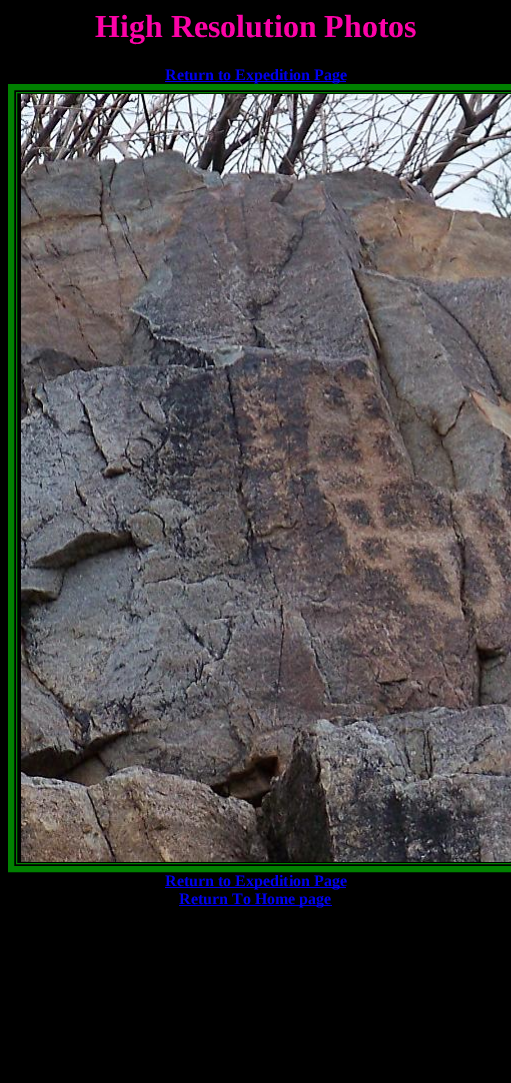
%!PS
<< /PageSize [511 1083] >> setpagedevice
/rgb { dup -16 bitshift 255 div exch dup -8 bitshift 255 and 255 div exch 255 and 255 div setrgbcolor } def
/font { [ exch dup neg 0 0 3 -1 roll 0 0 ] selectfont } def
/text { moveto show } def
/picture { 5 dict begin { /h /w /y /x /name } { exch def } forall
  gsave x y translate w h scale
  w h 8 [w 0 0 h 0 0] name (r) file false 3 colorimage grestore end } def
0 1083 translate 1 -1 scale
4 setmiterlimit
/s1 { /LiberationSerif-Bold 32 font 16#FC03A8 rgb } def
/s2 { /LiberationSerif-Bold 16 font 16#0000EE rgb } def
16#000000 rgb
0 0 511 1083 rectfill
s1
(High Resolution Photos) 95 37 text
16#0000EE rgb
165 81 181 1 rectfill
s2
(Return to Expedition Page) 165 80 text
16#008000 rgb
6 setlinewidth
11 87 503 782 rectstroke
1 setlinewidth
16.5 92.5 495 771 rectstroke
(pic1.raw) 21 94 490 768 picture
16#0000EE rgb
165 887 181 1 rectfill
(Return to Expedition Page) 165 886 text
179 905 153 1 rectfill
(Return To Home page) 179 904 text
showpage
